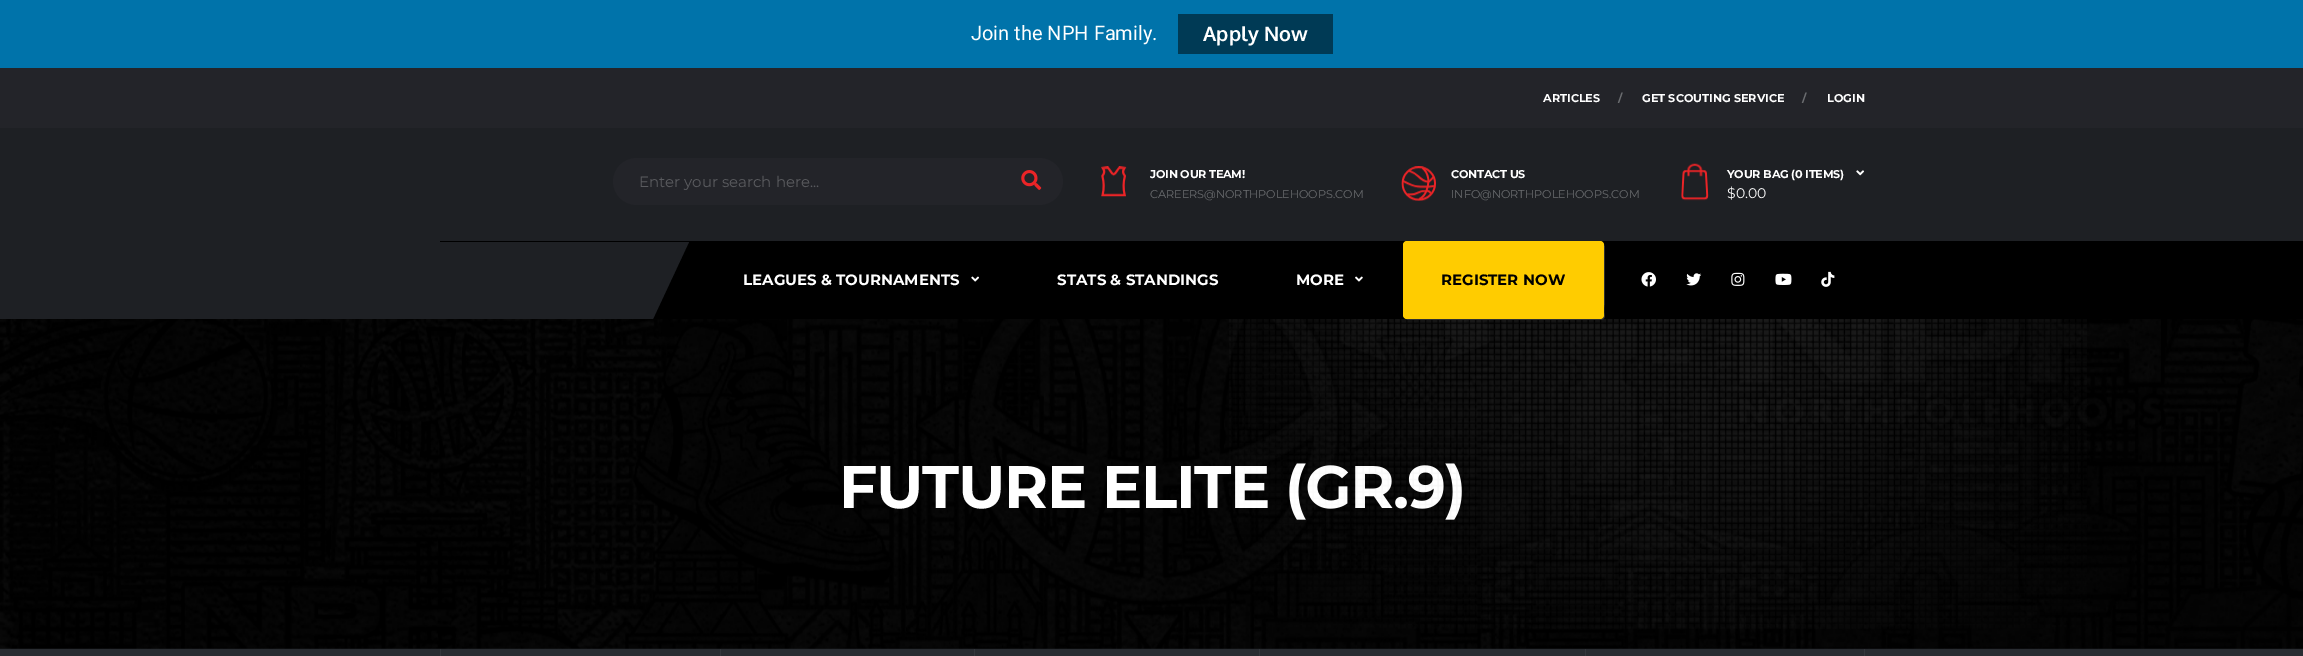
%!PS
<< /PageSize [2303 656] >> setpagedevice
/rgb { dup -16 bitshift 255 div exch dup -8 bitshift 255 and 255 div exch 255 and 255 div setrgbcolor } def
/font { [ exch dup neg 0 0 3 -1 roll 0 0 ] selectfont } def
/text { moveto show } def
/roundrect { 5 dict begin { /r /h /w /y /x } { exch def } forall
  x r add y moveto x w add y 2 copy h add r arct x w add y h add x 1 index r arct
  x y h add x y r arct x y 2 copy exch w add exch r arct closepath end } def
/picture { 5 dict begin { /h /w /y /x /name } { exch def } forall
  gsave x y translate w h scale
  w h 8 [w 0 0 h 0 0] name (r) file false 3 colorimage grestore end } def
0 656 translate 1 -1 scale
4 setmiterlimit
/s1 { /Roboto-Regular 20 font 16#FFFFFF rgb } def
/s2 { /Oxygen-Bold 20 font 16#FFFFFF rgb } def
/s3 { /Montserrat-Bold 11.25 font 16#FFFFFF rgb } def
/s4 { /Montserrat-Bold 11.25 font 16#6B6D70 rgb } def
/s5 { /Montserrat-Thin 15 font 16#5A5B5F rgb } def
/s6 { /Montserrat-Thin 11.25 font 16#6B6D70 rgb } def
/s7 { /Montserrat-Thin 14 font 16#FFFFFF rgb } def
/s8 { /Montserrat-Bold 15 font 16#FFFFFF rgb } def
/s9 { /Montserrat-Bold 15 font 16#000000 rgb } def
16#1E2024 rgb
0 0 2303 656 rectfill
16#0073AA rgb
0 0 2303 68 rectfill
s1
(Join the NPH Family.) 971 40 text
16#003A55 rgb
1178 14 155 40 rectfill
s2
(Apply Now) 1203 41 text
16#232429 rgb
0 68 2303 60 rectfill
s3
(ARTICLES) 1543 102 text
s4
(/) 1618 102 text
s3
(GET SCOUTING SERVICE) 1642 102 text
s4
(/) 1802 102 text
s3
(LOGIN) 1827 102 text
16#232429 rgb
613 158 450 47 23.5 roundrect fill
s5
(Enter your search here...) 639 187 text
(pic1.raw) 1021 170 21 20 picture
(pic2.raw) 1101 166 26 31 picture
/Montserrat-Bold 11.25 font
16#FFFFFF rgb
1150 178 moveto -0.25 0 (JOIN OUR TEAM!) ashow
s6
(CAREERS@NORTHPOLEHOOPS.COM) 1150 198 text
(pic3.raw) 1401 166 35 35 picture
/Montserrat-Bold 11.25 font
16#FFFFFF rgb
1451 178 moveto -0.25 0 (CONTACT US) ashow
s6
(INFO@NORTHPOLEHOOPS.COM) 1451 198 text
(pic5.raw) 1681 169 28 32 picture
(pic4.raw) 1687 163 16 14 picture
/Montserrat-Bold 11.25 font
16#FFFFFF rgb
1727 178 moveto -0.25 0 (YOUR BAG \(0 ITEMS\)) ashow
(pic6.raw) 1856 170 8 6 picture
s7
($0.00) 1727 198 text
16#000000 rgb
440 241 1863 78 rectfill
16#1E2024 rgb
426 242 moveto 689 242 lineto 653 319 lineto 390 319 lineto closepath fill
s8
(LEAGUES & TOURNAMENTS) 743 285 text
(pic7.raw) 971 276 8 6 picture
(STATS & STANDINGS) 1057 285 text
(MORE) 1296 285 text
(pic8.raw) 1355 276 8 6 picture
(pic14.raw) 0 319 2303 330 picture
/Montserrat-Bold 60 font
839 508 moveto -1.25 0 (FUTURE ELITE \(GR.9\)) ashow
(pic15.raw) 1229 319 858 310 picture
16#2F2F2F rgb
1405 318 moveto 1406 319 1407 320 1408 320 curveto 1601 320 lineto 1603 320 1605 318 1605 316 curveto 1605 247 lineto 1605 246 1604 245 1604 244 curveto 1604 303 lineto 1604 304 1607 319 1600 319 curveto closepath fill
16#FFCC00 rgb
1403 241 201 78 4 roundrect fill
s9
(REGISTER NOW) 1441 285 text
(pic9.raw) 1641 272 15 15 picture
(pic10.raw) 1686 273 16 13 picture
(pic11.raw) 1731 272 14 14 picture
(pic12.raw) 1775 273 17 12 picture
(pic13.raw) 1821 271 14 16 picture
16#292C31 rgb
0 649 2303 7 rectfill
16#34373C rgb
1864 649 1 7 rectfill
440 649 1 7 rectfill
720 649 1 7 rectfill
974 649 1 7 rectfill
1259 649 1 7 rectfill
1585 649 1 7 rectfill
showpage
